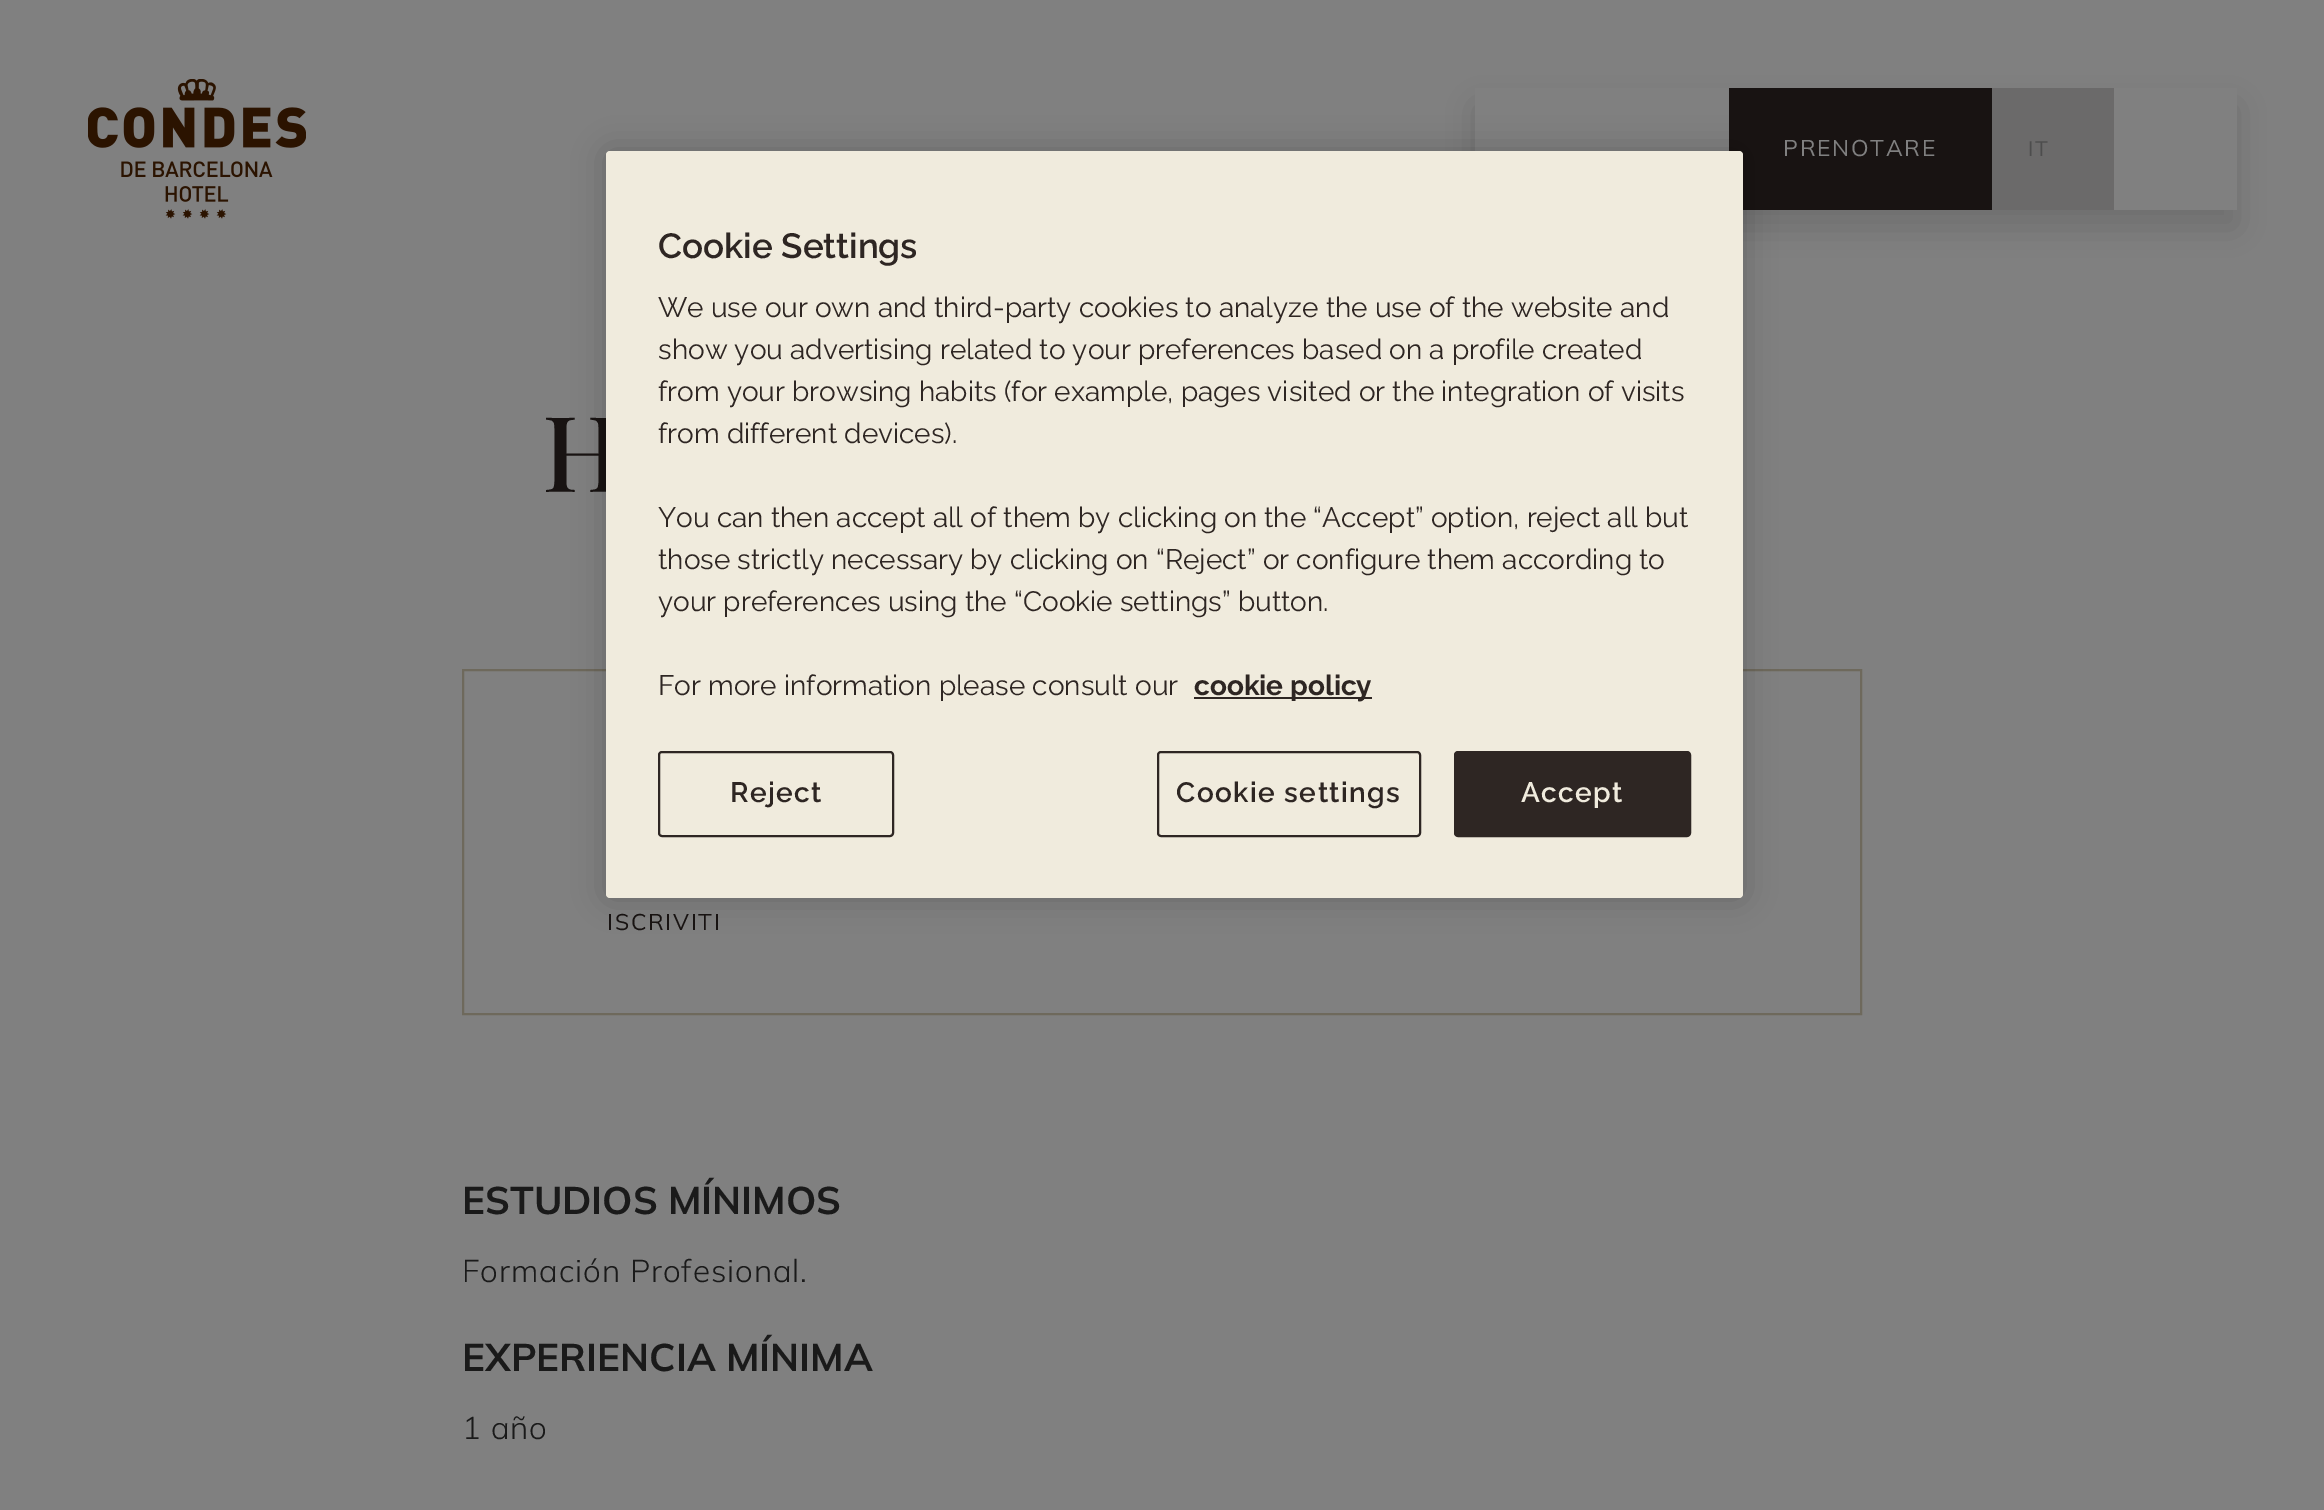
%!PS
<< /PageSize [2324 1510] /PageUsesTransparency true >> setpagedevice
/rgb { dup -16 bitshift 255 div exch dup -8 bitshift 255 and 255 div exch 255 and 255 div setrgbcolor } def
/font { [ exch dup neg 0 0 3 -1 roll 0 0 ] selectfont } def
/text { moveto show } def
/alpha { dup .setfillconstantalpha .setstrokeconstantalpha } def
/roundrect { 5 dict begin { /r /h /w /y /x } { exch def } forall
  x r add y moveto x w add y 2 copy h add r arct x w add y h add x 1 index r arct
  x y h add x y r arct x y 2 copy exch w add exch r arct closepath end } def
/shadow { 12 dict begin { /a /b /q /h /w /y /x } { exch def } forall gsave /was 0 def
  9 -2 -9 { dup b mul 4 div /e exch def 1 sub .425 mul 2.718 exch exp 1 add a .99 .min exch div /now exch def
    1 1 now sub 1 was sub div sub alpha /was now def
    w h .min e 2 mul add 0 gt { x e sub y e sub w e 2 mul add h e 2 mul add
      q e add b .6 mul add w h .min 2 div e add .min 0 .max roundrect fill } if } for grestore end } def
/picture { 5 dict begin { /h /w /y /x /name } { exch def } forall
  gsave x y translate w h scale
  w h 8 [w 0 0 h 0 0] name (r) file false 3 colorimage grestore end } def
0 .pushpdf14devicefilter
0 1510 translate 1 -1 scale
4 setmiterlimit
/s1 { /PlayfairDisplay-Medium 105 font 16#181312 rgb } def
/s2 { /Mulish-Bold 38.5 font 16#1A1A1A rgb } def
/s3 { /Raleway-SemiBold 35 font 16#2E2623 rgb } def
/s4 { /Raleway-Regular 28 font 16#2E2623 rgb } def
/s5 { /Raleway-Bold 28 font 16#2E2623 rgb } def
16#808080 rgb
0 0 2324 1510 rectfill
(pic1.raw) 88 79 218 140 picture
16#090909 rgb
1475 105 762 123 0 17.5 0.15 shadow
16#808080 rgb
1475 88 254 63 rectfill
16#181312 rgb
1729 88 263 122 rectfill
/Mulish-Regular 22.75 font
16#808080 rgb
1783 156 moveto 1.75 0 (PRENOTARE) ashow
16#6B6A6A rgb
1992 88 122 122 rectfill
/Mulish-Regular 21 font
16#4D4D4D rgb
2028 156 moveto 1.75 0 (IT) ashow
16#808080 rgb
2114 88 123 122 rectfill
s1
(H) 542 492 text
16#6E695C rgb
2 setlinewidth
463 670 1398 344 rectstroke
/Mulish-Regular 22.75 font
16#181312 rgb
607 930 moveto 1.75 0 (ISCRIVITI) ashow
s2
(ESTUDIOS MÍNIMOS) 462 1214 text
/Mulish-Light 31.5 font
462 1282 moveto 0.9 0 (Formación Profesional.) ashow
s2
(EXPERIENCIA MÍNIMA) 462 1371 text
/Mulish-Light 31.5 font
462 1439 moveto 0.9 0 (1 año) ashow
16#000000 rgb
606 151 1137 747 4 16 0.2 shadow
16#F0EBDD rgb
606 151 1137 747 4 roundrect fill
s3
(Cookie Settings) 658 258 text
s4
(We use our own and third-party cookies to analyze the use of the website and) 658 317 text
(show you advertising related to your preferences based on a profile created) 658 359 text
(from your browsing habits \(for example, pages visited or the integration of visits) 658 401 text
(from different devices\).) 658 443 text
(You can then accept all of them by clicking on the “Accept” option, reject all but) 658 527 text
(those strictly necessary by clicking on “Reject” or configure them according to) 658 569 text
(your preferences using the “Cookie settings” button.) 658 611 text
(For more information please consult our) 658 695 text
1194 697 178 2 rectfill
s5
(cookie policy) 1194 695 text
659 752 234 84 3 roundrect stroke
/Raleway-SemiBold 28 font
730 802 moveto 1.4 0 (Reject) ashow
1455 752 235 84 3 roundrect gsave fill grestore
stroke
16#F0EBDD rgb
1521 802 moveto 1.4 0 (Accept) ashow
16#2E2623 rgb
1158 752 262 84 3 roundrect stroke
1176 802 moveto 1.4 0 (Cookie settings) ashow
.poppdf14devicefilter showpage
